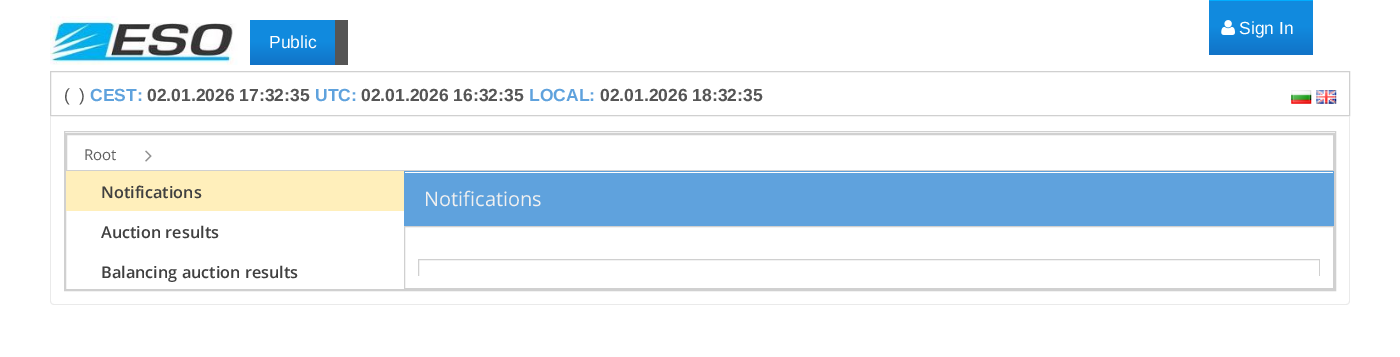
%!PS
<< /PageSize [1400 357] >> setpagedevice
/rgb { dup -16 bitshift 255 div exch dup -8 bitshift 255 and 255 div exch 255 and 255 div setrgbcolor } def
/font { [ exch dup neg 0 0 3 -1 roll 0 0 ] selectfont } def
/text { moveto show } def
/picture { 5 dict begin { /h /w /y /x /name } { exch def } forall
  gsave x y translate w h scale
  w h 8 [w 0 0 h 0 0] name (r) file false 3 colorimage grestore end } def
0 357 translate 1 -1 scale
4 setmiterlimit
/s1 { /LiberationSans-Regular 17.5 font 16#FFFFFF rgb } def
/s2 { /LiberationSans-Regular 17.5 font 16#555555 rgb } def
/s3 { /LiberationSans-Bold 17.5 font 16#5FA2DD rgb } def
/s4 { /LiberationSans-Bold 17.5 font 16#555555 rgb } def
/s5 { /OpenSans-Regular 15 font 16#606060 rgb } def
/s6 { /OpenSans-SemiBold 16.25 font 16#404040 rgb } def
/s7 { /OpenSans-Regular 20 font 16#F0F0F0 rgb } def
16#FFFFFF rgb
0 0 1400 357 rectfill
16#00AEFF rgb
1209 0 104 1 rectfill
gsave 1209 1 moveto 1313 1 lineto 1313 55 lineto 1209 55 lineto closepath clip newpath
<< /ShadingType 2 /ColorSpace /DeviceRGB /Coords [1261 1.2 1261 55] /Extend [true true] /Function << /FunctionType 3 /Domain [0 1] /Functions [<< /FunctionType 2 /Domain [0 1] /C0 [0.067 0.541 0.871] /C1 [0.067 0.541 0.871] /N 1 >> << /FunctionType 2 /Domain [0 1] /C0 [0.067 0.541 0.871] /C1 [0.071 0.451 0.78] /N 1 >>] /Bounds [0.47] /Encode [0 1 0 1] >> >> shfill grestore
(pic1.raw) 1221 20 14 15 picture
s1
(Sign In) 1239 34 text
(pic2.raw) 50 16 188 49 picture
16#555555 rgb
335 20 13 45 rectfill
gsave 250 20 moveto 335 20 lineto 335 65 lineto 250 65 lineto closepath clip newpath
<< /ShadingType 2 /ColorSpace /DeviceRGB /Coords [293 20 293 65] /Extend [true true] /Function << /FunctionType 3 /Domain [0 1] /Functions [<< /FunctionType 2 /Domain [0 1] /C0 [0.067 0.541 0.871] /C1 [0.067 0.541 0.871] /N 1 >> << /FunctionType 2 /Domain [0 1] /C0 [0.067 0.541 0.871] /C1 [0.071 0.451 0.78] /N 1 >>] /Bounds [0.47] /Encode [0 1 0 1] >> >> shfill grestore
s1
(Public) 269 48 text
16#D0D0D0 rgb
50.5 71.5 1299 44 rectstroke
s2
(\() 64 101 text
(\)) 79 101 text
s3
(CEST:) 90 101 text
s4
(02.01.2026 17:32:35) 147 101 text
s3
(UTC:) 315 101 text
s4
(02.01.2026 16:32:35) 361 101 text
s3
(LOCAL:) 529 101 text
s4
(02.01.2026 18:32:35) 600 101 text
(pic3.raw) 1291 90 21 14 picture
(pic4.raw) 1316 90 21 14 picture
16#EAEAEA rgb
50 116 moveto 1350 116 lineto 1350 301 lineto 1350 303 1348 305 1346 305 curveto 54 305 lineto 52 305 50 303 50 301 curveto closepath 51 116 moveto 1349 116 lineto 1349 301 lineto 1349 303 1348 304 1346 304 curveto 54 304 lineto 52 304 51 303 51 301 curveto closepath eofill
16#D0D0D0 rgb
64.5 131.5 1271 159 rectstroke
65.5 133.5 1269 156 rectstroke
66.5 134.5 1267 36 rectstroke
s5
(Root) 84 160 text
(pic5.raw) 145 150 7 12 picture
16#FFEFBB rgb
66 171 338 40 rectfill
s6
(Notifications) 101 198 text
(Auction results) 101 238 text
(Balancing auction results) 101 278 text
16#5FA2DD rgb
405 173 928 53 rectfill
404 171 930 1 rectfill
1333 171 1 55 rectfill
404 171 1 55 rectfill
s7
(Notifications) 424 206 text
16#D0D0D0 rgb
404.5 226.5 929 62 rectstroke
gsave
418 259 902 17 rectclip
418.5 259.5 901 26 rectstroke
grestore
showpage
